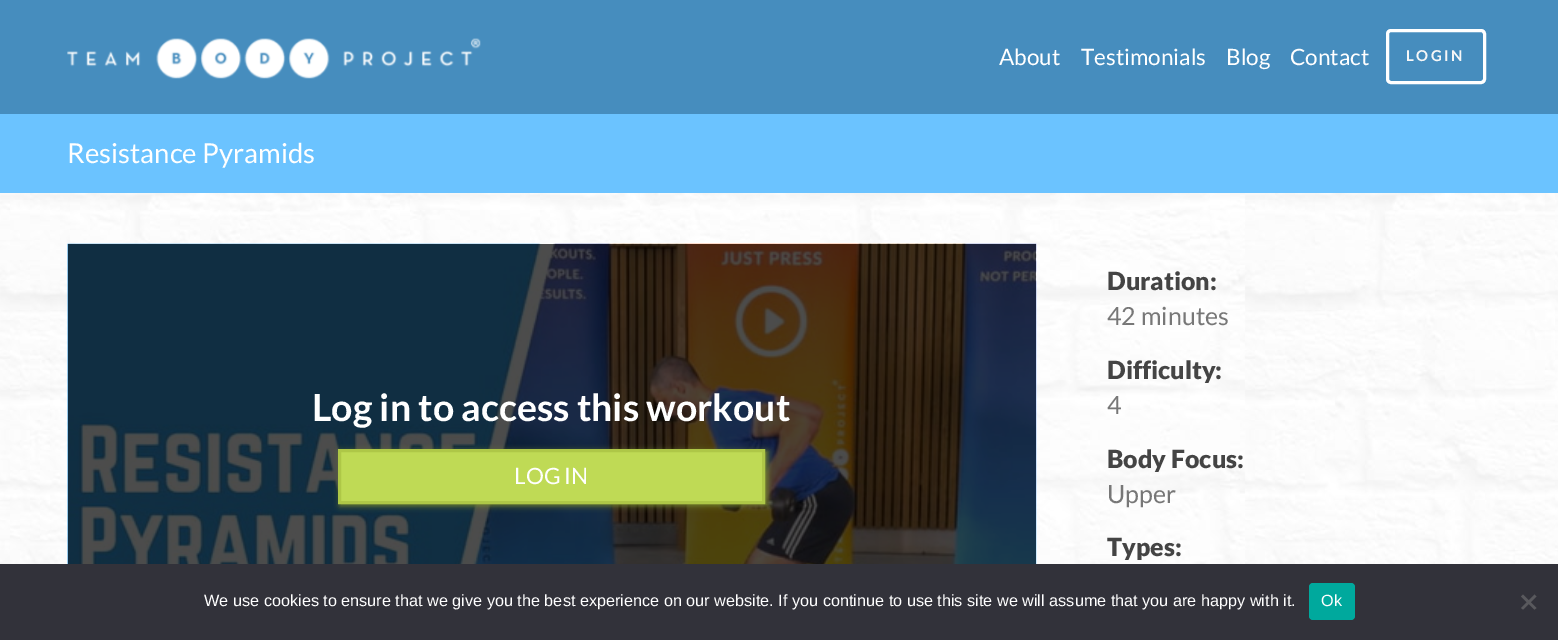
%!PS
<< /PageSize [1558 640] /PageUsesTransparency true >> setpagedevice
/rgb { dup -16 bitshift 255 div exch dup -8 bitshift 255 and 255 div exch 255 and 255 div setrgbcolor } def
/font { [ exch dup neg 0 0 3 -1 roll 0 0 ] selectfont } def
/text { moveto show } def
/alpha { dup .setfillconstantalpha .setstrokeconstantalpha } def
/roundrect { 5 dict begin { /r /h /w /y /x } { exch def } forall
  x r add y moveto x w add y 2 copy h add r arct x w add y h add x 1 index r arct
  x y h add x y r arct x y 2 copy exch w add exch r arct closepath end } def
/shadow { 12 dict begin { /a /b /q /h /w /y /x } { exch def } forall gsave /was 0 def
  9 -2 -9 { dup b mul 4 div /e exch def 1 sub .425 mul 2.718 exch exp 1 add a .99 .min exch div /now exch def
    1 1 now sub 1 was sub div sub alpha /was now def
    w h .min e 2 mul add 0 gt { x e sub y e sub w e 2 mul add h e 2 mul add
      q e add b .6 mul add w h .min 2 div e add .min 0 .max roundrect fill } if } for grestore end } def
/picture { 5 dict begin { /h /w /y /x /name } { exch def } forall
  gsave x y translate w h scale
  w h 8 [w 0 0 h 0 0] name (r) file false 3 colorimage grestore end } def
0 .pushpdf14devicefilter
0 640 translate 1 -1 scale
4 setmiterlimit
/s1 { /Lato-Regular 22.5 font 16#FFFFFF rgb } def
/s2 { /Lato-Regular 27.5 font 16#FFFFFF rgb } def
/s3 { /Lato-Bold 37.5 font 16#FFFFFF rgb } def
/s4 { /Lato-Black 25 font 16#444444 rgb } def
/s5 { /Lato-Regular 25 font 16#777777 rgb } def
/s6 { /LiberationSans-Regular 16.25 font 16#FFFFFF rgb } def
16#6BC3FF rgb
0 0 1558 640 rectfill
16#468DBE rgb
0 0 1558 114 rectfill
(pic1.raw) 67 38 414 41 picture
s1
(About) 999 65 text
(Testimonials) 1081 65 text
(Blog) 1226 65 text
(Contact) 1290 65 text
3 setlinewidth
1387.5 30.5 97 52 3.5 roundrect stroke
/Lato-Bold 15 font
16#F7F7F7 rgb
1406 61 moveto 2.5 0 (LOGIN) ashow
s2
(Resistance Pyramids) 67 163 text
(pic2.raw) 0 193 1558 371 picture
(pic3.raw) 67 243 970 321 picture
s3
(Log in to access this workout) 312 421 text
16#75862F rgb
340 451 428 55 0 3 1 shadow
16#BFDA55 rgb
339.5 450.5 moveto 763.5 450.5 lineto 763.5 502.5 lineto 339.5 502.5 lineto closepath gsave fill grestore
16#AEC747 rgb
stroke
s1
(LOG IN) 514 484 text
s4
(Duration:) 1107 290 text
s5
(42 minutes) 1107 325 text
s4
(Difficulty:) 1107 379 text
s5
(4) 1107 414 text
s4
(Body Focus:) 1107 468 text
s5
(Upper) 1107 503 text
s4
(Types:) 1107 556 text
16#32323A rgb
0 564 1558 76 rectfill
s6
(We use cookies to ensure that we give you the best experience on our website. If you continue to use this site we will assume that you are happy with it.) 204 606 text
16#00A99D rgb
1309 583 46 37 4 roundrect fill
s6
(Ok) 1321 606 text
16#59595D rgb
1534.5 594.5 moveto 1536.5 596.5 lineto 1523 609.5 lineto 1521 608 lineto closepath fill
1521 596.5 moveto 1523 594.5 lineto 1536.5 608 lineto 1534.5 609.5 lineto closepath fill
.poppdf14devicefilter showpage
